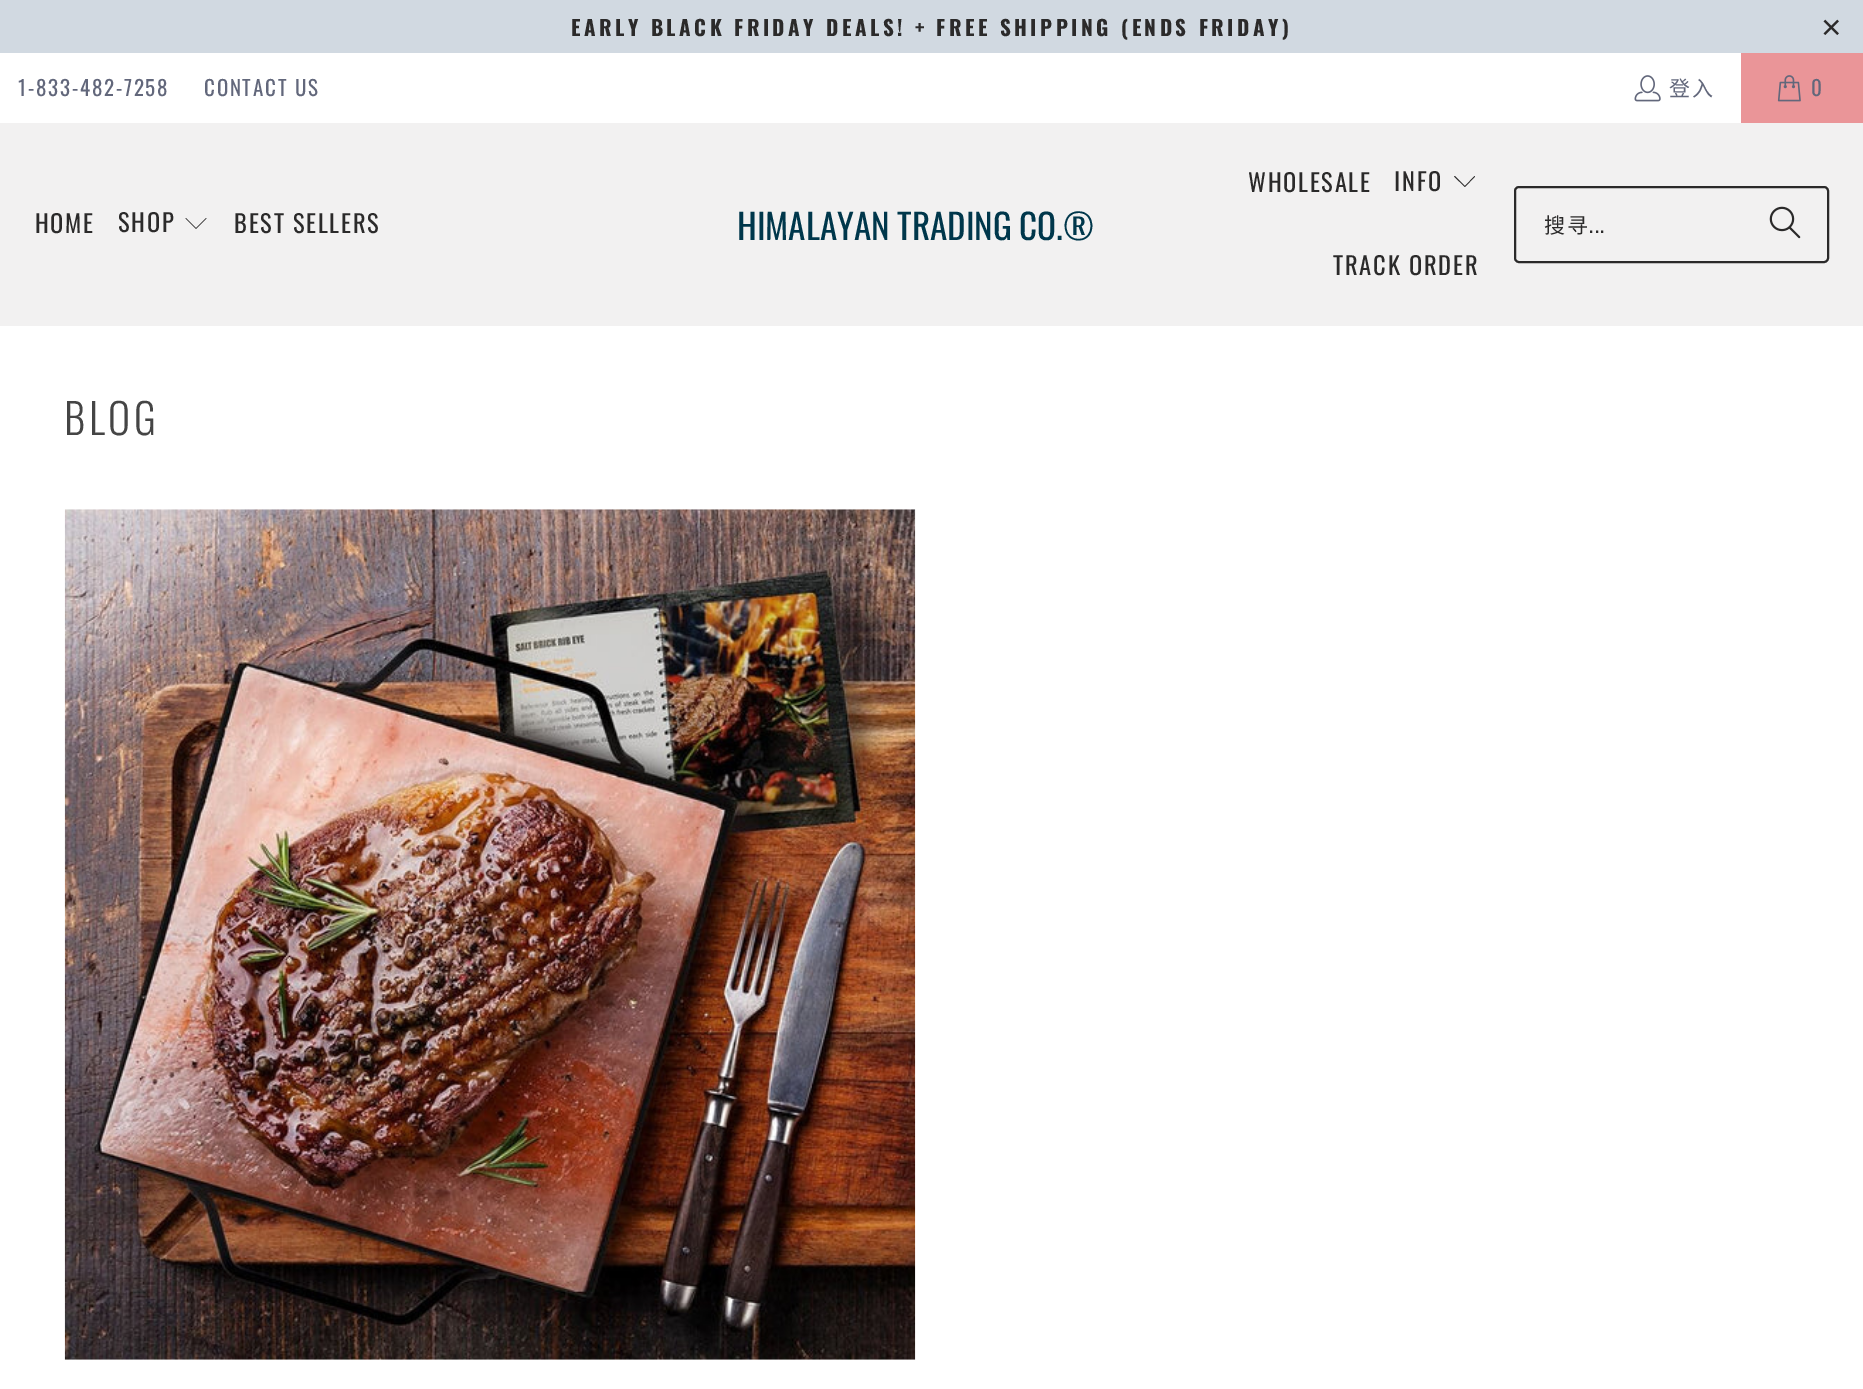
%!PS
<< /PageSize [1863 1389] >> setpagedevice
/rgb { dup -16 bitshift 255 div exch dup -8 bitshift 255 and 255 div exch 255 and 255 div setrgbcolor } def
/font { [ exch dup neg 0 0 3 -1 roll 0 0 ] selectfont } def
/text { moveto show } def
/roundrect { 5 dict begin { /r /h /w /y /x } { exch def } forall
  x r add y moveto x w add y 2 copy h add r arct x w add y h add x 1 index r arct
  x y h add x y r arct x y 2 copy exch w add exch r arct closepath end } def
/picture { 5 dict begin { /h /w /y /x /name } { exch def } forall
  gsave x y translate w h scale
  w h 8 [w 0 0 h 0 0] name (r) file false 3 colorimage grestore end } def
0 1389 translate 1 -1 scale
4 setmiterlimit
/s1 { /Oswald-Regular 35 font 16#00374B rgb } def
16#FFFFFF rgb
0 0 1863 1389 rectfill
16#D1D9E1 rgb
0 0 1863 53 rectfill
/Oswald-Bold 21 font
16#2B2A2A rgb
571 36 moveto 3.5 0 (EARLY BLACK FRIDAY DEALS! + FREE SHIPPING \(ENDS FRIDAY\)) ashow
/LiberationSans-Regular 35 font
1821 39 moveto 3.5 0 (×) ashow
/Oswald-Regular 21 font
16#62677B rgb
18 96 moveto 1.75 0 (1-833-482-7258) ashow
204 96 moveto 1.75 0 (CONTACT US) ashow
(pic1.raw) 1634 75 27 27 picture
/NotoSansCJKSC-Regular 21 font
1669 96 moveto 1.75 0 (登入) ashow
16#EA9598 rgb
1741 53 122 70 rectfill
(pic2.raw) 1777 75 24 27 picture
/Oswald-Regular 21 font
16#62677B rgb
1811 96 moveto 1.75 0 (0) ashow
16#F2F1F1 rgb
0 123 1863 203 rectfill
/Oswald-Regular 24.5 font
16#2B2A2A rgb
35 233 moveto 1.75 0 (HOME) ashow
118 232 moveto 1.75 0 (SHOP) ashow
196 229 moveto 185.5 218.5 lineto 186 218 lineto 196 228 lineto 206 218 lineto 206.5 218.5 lineto closepath fill
234 233 moveto 1.75 0 (BEST SELLERS) ashow
s1
(HIMALAYAN TRADING CO.®) 737 240 text
/Oswald-Regular 24.5 font
16#2B2A2A rgb
1248 192 moveto 1.75 0 (WHOLESALE) ashow
1394 191 moveto 1.75 0 (INFO) ashow
1465 187 moveto 1454 176.5 lineto 1455 176 lineto 1465 186 lineto 1474.5 176 lineto 1475 176.5 lineto closepath fill
1333 275 moveto 1.75 0 (TRACK ORDER) ashow
2 setlinewidth
1515 187 313 75 4 roundrect stroke
/NotoSansCJKSC-Regular 21 font
1544 233 moveto 1.75 0 (搜寻) ashow
/Oswald-Regular 21 font
1589 233 moveto 1.75 0 (...) ashow
(pic3.raw) 1769 206 32 33 picture
/Oswald-Light 42 font
16#454545 rgb
64 435 moveto 3.5 0 (BLOG) ashow
(pic4.raw) 64 509 852 851 picture
showpage
